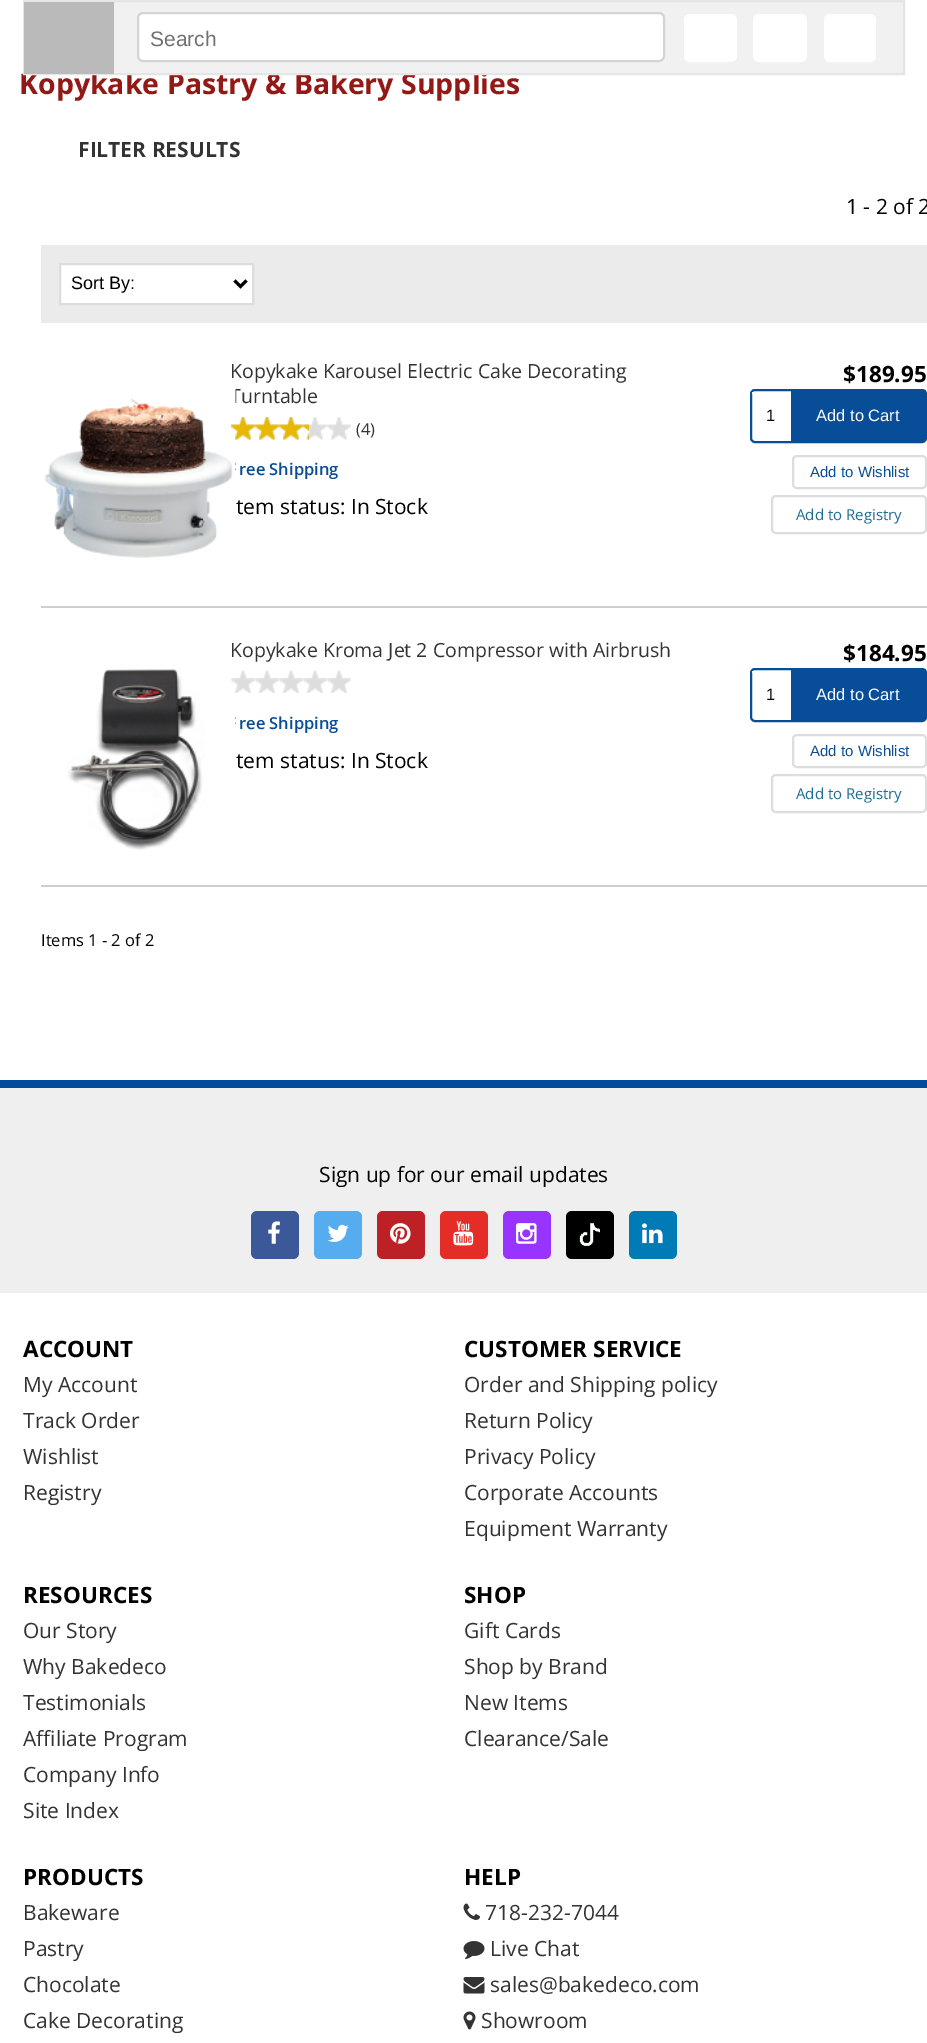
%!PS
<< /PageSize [927 2043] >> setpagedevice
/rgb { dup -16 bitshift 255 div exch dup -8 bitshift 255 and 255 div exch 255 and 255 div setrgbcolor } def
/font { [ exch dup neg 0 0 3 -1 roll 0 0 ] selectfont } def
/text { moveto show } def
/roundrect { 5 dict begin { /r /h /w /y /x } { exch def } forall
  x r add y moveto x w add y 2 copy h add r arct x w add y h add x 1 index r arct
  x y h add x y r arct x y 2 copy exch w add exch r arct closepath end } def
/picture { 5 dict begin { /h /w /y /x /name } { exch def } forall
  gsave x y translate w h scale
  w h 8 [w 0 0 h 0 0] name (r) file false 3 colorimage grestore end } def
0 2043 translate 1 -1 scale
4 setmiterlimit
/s1 { /OpenSans-Bold 28.5 font 16#921915 rgb } def
/s2 { /LiberationSans-Regular 21 font 16#707070 rgb } def
/s3 { /OpenSans-Bold 21 font 16#333333 rgb } def
/s4 { /OpenSans-Regular 21 font 16#000000 rgb } def
/s5 { /LiberationSans-Regular 18 font 16#000000 rgb } def
/s6 { /OpenSans-Regular 19.5 font 16#333333 rgb } def
/s7 { /OpenSans-Regular 16.5 font 16#333333 rgb } def
/s8 { /OpenSans-SemiBold 16.5 font 16#084D97 rgb } def
/s9 { /OpenSans-Bold 22.5 font 16#000000 rgb } def
/s10 { /LiberationSans-Regular 16.5 font 16#000000 rgb } def
/s11 { /LiberationSans-Regular 16.5 font 16#FFFFFF rgb } def
/s12 { /LiberationSans-Regular 15 font 16#084D97 rgb } def
/s13 { /OpenSans-Regular 15 font 16#1D6D95 rgb } def
/s14 { /OpenSans-Regular 16.5 font 16#000000 rgb } def
/s15 { /OpenSans-Regular 21 font 16#333333 rgb } def
16#FFFFFF rgb
0 0 927 2043 rectfill
s1
(Kopykake Pastry & Bakery Supplies) 19 94 text
16#F1F1F1 rgb
114 2 789 71 rectfill
16#E5E5E5 rgb
2 setlinewidth
24 1 880 73 rectstroke
16#BABABA rgb
24 2 90 72 rectfill
16#FFFFFF rgb
138 13 526 48 5 roundrect gsave fill grestore
16#D4D4D4 rgb
stroke
s2
(Search) 150 46 text
16#FFFFFF rgb
684 14 53 48 6 roundrect fill
753 14 54 48 6 roundrect fill
824 14 52 48 6 roundrect fill
s3
(FILTER RESULTS) 78 157 text
s4
(1 - 2 of 2) 846 214 text
16#EBEBEB rgb
41 245 886 78 rectfill
16#FFFFFF rgb
60 264 moveto 253 264 lineto 253 304 lineto 60 304 lineto closepath gsave fill grestore
16#DDDDDD rgb
stroke
16#000000 rgb
3 setlinewidth
234.5 280.5 moveto 240.5 286.5 lineto 246.5 280.5 lineto stroke
s5
(Sort By:) 71 289 text
16#CFCFCF rgb
41 606 886 2 rectfill
s6
(Turntable) 230 403 text
(pic1.raw) 44 389 192 169 picture
(Kopykake Karousel Electric Cake Decorating) 230 378 text
(pic2.raw) 231 417 120 23 picture
(pic3.raw) 231 417 78 23 picture
s7
(\(4\)) 356 435 text
s8
(ree Shipping) 239 475 text
s4
(tem status: In Stock) 236 514 text
s9
($189.95) 843 382 text
16#084D97 rgb
2 setlinewidth
751 390 175 52 4 roundrect stroke
16#FFFFFF rgb
752 392 1 2 rectfill
s10
(1) 766 421 text
16#084D97 rgb
791 390 135 51 rectfill
s11
(Add to Cart) 816 421 text
16#DDDDDD rgb
793 456 133 32 4 roundrect stroke
s12
(Add to Wishlist) 810 477 text
16#DDDDDD rgb
772 496 154 37 4 roundrect stroke
s13
(Add to Registry) 796 520 text
16#CFCFCF rgb
41 885 886 2 rectfill
(pic4.raw) 67 669 169 181 picture
s6
(Kopykake Kroma Jet 2 Compressor with Airbrush) 230 657 text
(pic5.raw) 231 670 120 23 picture
s8
(ree Shipping) 239 729 text
s4
(tem status: In Stock) 236 768 text
s9
($184.95) 843 661 text
16#084D97 rgb
751 669 175 52 4 roundrect stroke
16#FFFFFF rgb
752 671 1 2 rectfill
s10
(1) 766 700 text
16#084D97 rgb
791 669 135 51 rectfill
s11
(Add to Cart) 816 700 text
16#DDDDDD rgb
793 735 133 32 4 roundrect stroke
s12
(Add to Wishlist) 810 756 text
16#DDDDDD rgb
772 775 154 37 4 roundrect stroke
s13
(Add to Registry) 796 799 text
s14
(Items 1 - 2 of 2) 41 946 text
16#EFEFEF rgb
0 1088 927 205 rectfill
16#024A9C rgb
0 1080 927 8 rectfill
s4
(Sign up for our email updates) 319 1182 text
16#3B5998 rgb
251 1211 48 48 6 roundrect fill
(pic6.raw) 268 1221 12 23 picture
16#55ACEE rgb
314 1211 48 48 6 roundrect fill
(pic7.raw) 327 1224 22 18 picture
16#BD2125 rgb
377 1211 48 48 6 roundrect fill
(pic8.raw) 390 1223 21 21 picture
16#E52D27 rgb
440 1211 48 48 6 roundrect fill
(pic9.raw) 453 1221 21 25 picture
16#9933FF rgb
503 1211 48 48 6 roundrect fill
(pic10.raw) 516 1223 21 21 picture
16#000000 rgb
566 1211 48 48 6 roundrect fill
(pic11.raw) 579 1223 21 23 picture
16#007BB6 rgb
629 1211 48 48 6 roundrect fill
(pic12.raw) 642 1223 21 21 picture
s9
(ACCOUNT) 23 1357 text
s15
(My Account) 23 1392 text
(Track Order) 23 1428 text
(Wishlist) 23 1464 text
(Registry) 23 1500 text
s9
(CUSTOMER SERVICE) 464 1357 text
s15
(Order and Shipping policy) 464 1392 text
(Return Policy) 464 1428 text
(Privacy Policy) 464 1464 text
(Corporate Accounts) 464 1500 text
(Equipment Warranty) 464 1536 text
s9
(RESOURCES) 23 1603 text
s15
(Our Story) 23 1638 text
(Why Bakedeco) 23 1674 text
(Testimonials) 23 1710 text
(Affiliate Program) 23 1746 text
(Company Info) 23 1782 text
(Site Index) 23 1818 text
s9
(SHOP) 464 1603 text
s15
(Gift Cards) 464 1638 text
(Shop by Brand) 464 1674 text
(New Items) 464 1710 text
(Clearance/Sale) 464 1746 text
s9
(PRODUCTS) 23 1885 text
s15
(Bakeware) 23 1920 text
(Pastry) 23 1956 text
(Chocolate) 23 1992 text
(Cake Decorating) 23 2028 text
s9
(HELP) 464 1885 text
(pic13.raw) 463 1903 17 17 picture
s15
(718-232-7044) 485 1920 text
(pic14.raw) 463 1941 22 18 picture
(Live Chat) 490 1956 text
(pic15.raw) 463 1977 22 17 picture
(sales@bakedeco.com) 490 1992 text
(pic16.raw) 463 2011 13 19 picture
(Showroom) 481 2028 text
showpage
